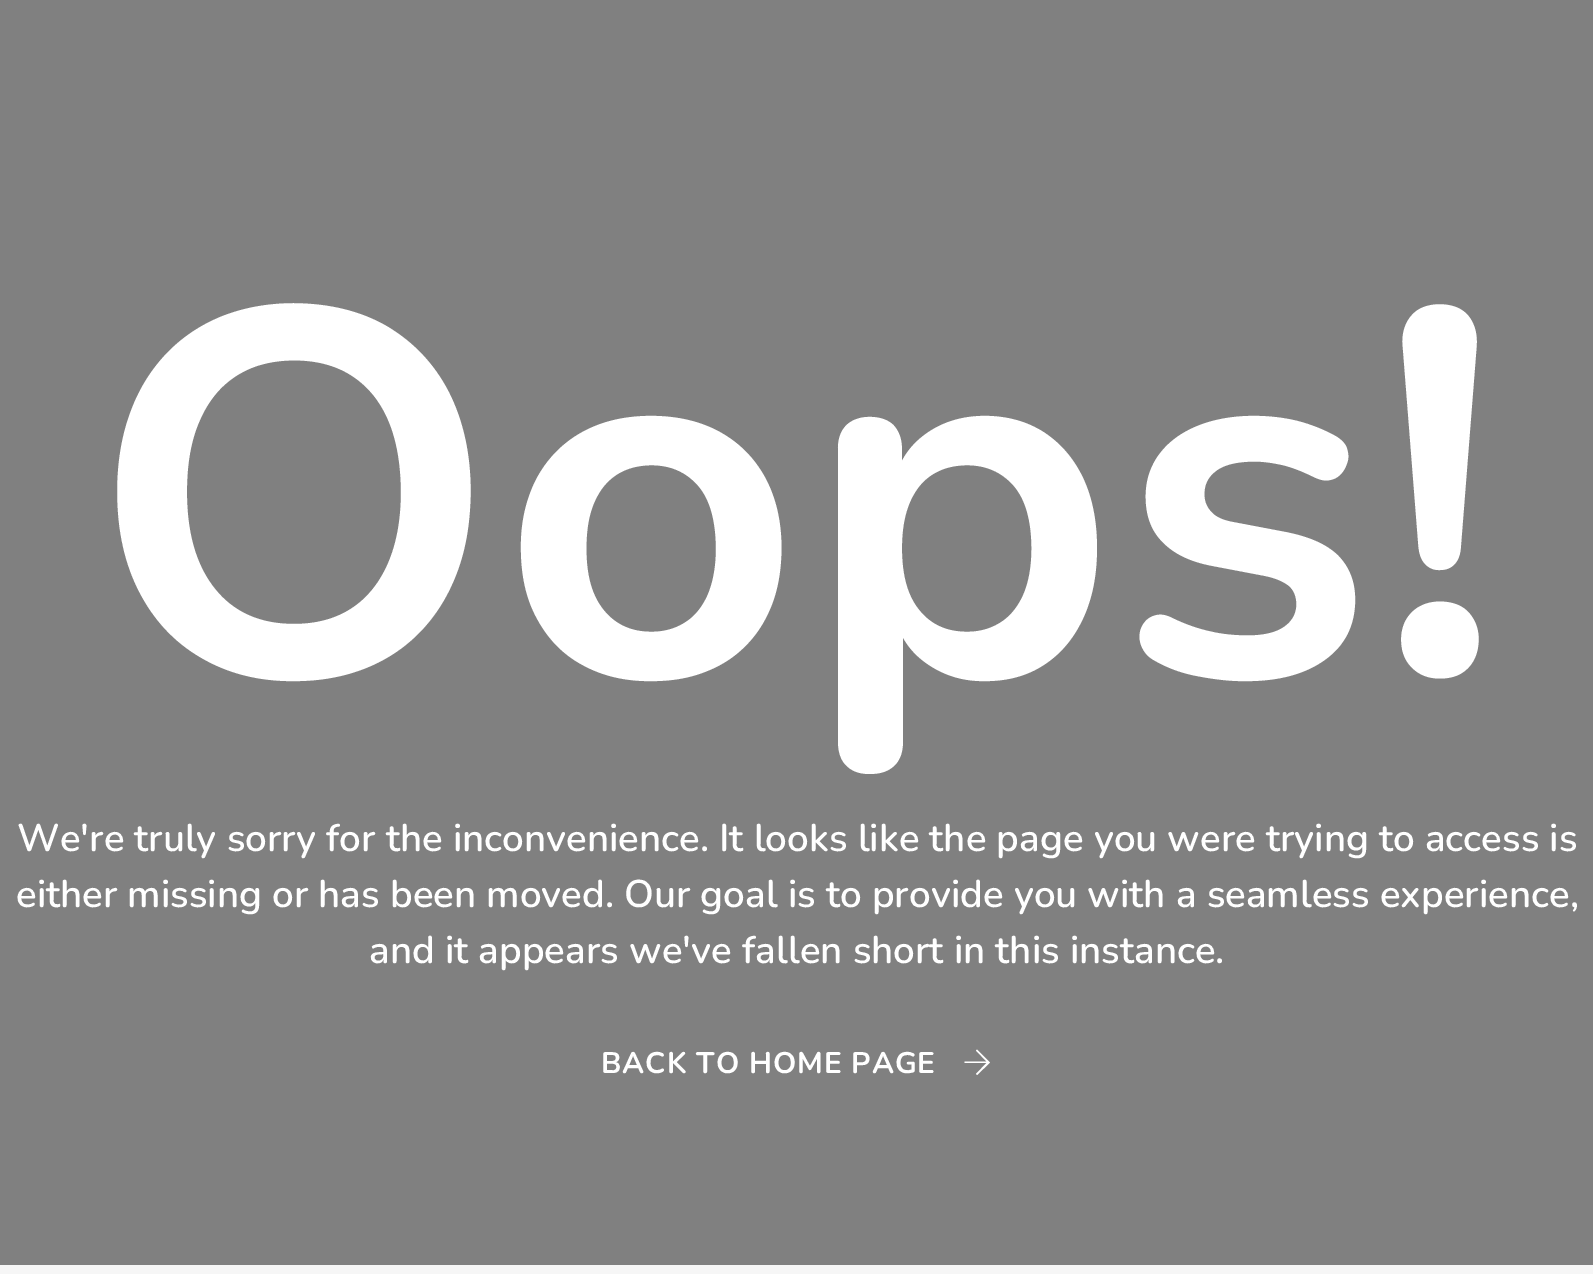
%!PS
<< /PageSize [1593 1274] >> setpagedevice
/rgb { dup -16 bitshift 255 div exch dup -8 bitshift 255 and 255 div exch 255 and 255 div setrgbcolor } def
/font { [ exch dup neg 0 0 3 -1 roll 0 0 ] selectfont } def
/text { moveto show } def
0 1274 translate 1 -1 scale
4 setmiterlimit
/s1 { /Nunito-Bold 525 font 16#FFFFFF rgb } def
/s2 { /Nunito-SemiBold 38.5 font 16#FFFFFF rgb } def
16#808080 rgb
0 0 1593 1274 rectfill
s1
(Oops!) 89 676 text
s2
(We're truly sorry for the inconvenience. It looks like the page you were trying to access is) 17 851 text
(either missing or has been moved. Our goal is to provide you with a seamless experience,) 16 907 text
(and it appears we've fallen short in this instance.) 369 963 text
/Nunito-Bold 29.75 font
601 1073 moveto 0.9 0 (BACK TO HOME PAGE) ashow
990 1062.5 moveto 977 1075 lineto 976 1074 lineto 986.5 1063 lineto 964.5 1063 lineto 964.5 1061.5 lineto 986.5 1061.5 lineto 976 1050.5 lineto 977 1049.5 lineto closepath fill
16#F6F6F6 rgb
0 1265 1593 9 rectfill
showpage
